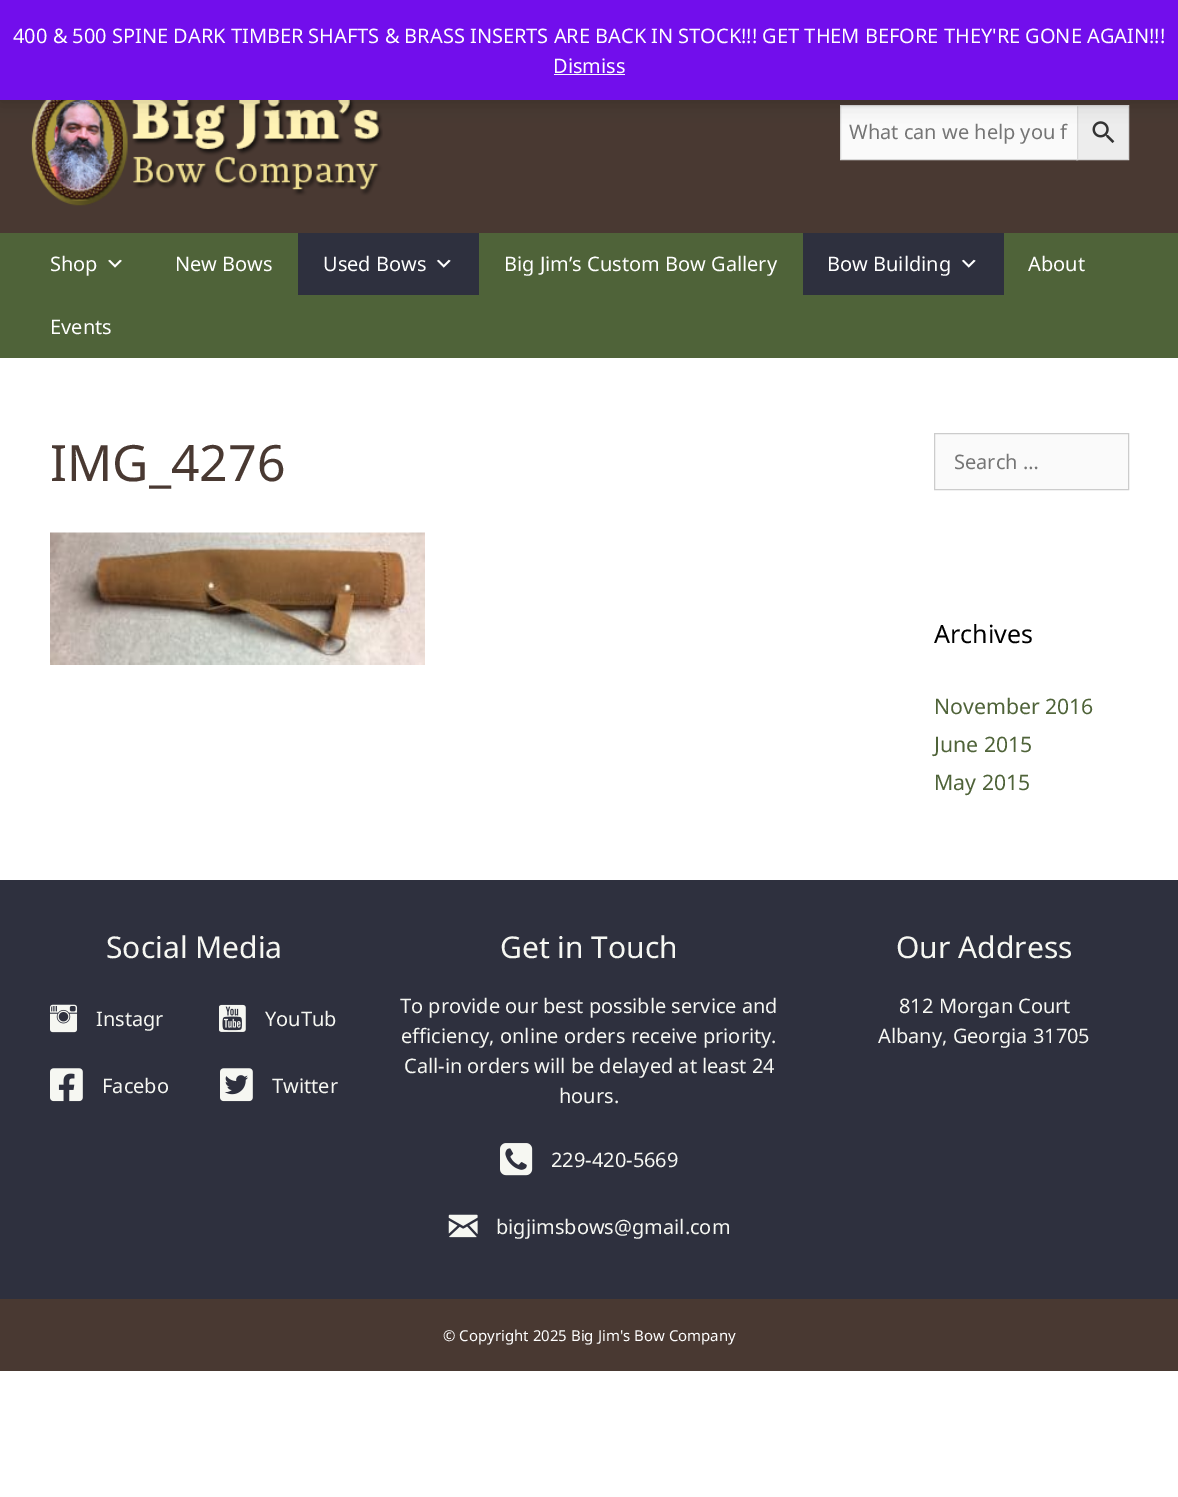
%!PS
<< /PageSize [1178 1497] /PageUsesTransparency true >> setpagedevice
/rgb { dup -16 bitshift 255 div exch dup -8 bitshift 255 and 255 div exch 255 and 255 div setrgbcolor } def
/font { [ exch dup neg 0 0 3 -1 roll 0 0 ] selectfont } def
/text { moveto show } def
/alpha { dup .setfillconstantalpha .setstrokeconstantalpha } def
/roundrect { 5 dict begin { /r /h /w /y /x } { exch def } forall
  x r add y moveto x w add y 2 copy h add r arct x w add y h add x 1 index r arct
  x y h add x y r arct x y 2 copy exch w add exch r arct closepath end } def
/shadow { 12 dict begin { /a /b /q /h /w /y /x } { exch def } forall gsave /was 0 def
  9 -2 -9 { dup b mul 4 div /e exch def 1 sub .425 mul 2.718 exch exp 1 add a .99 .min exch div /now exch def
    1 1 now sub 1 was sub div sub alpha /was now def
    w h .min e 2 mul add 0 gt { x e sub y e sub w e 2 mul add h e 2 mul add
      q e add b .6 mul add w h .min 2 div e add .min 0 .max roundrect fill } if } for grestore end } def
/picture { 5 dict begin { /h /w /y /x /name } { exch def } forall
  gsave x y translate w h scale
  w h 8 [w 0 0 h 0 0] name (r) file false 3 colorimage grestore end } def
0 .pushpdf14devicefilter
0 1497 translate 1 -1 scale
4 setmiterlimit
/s1 { /NotoSans-Regular 20 font 16#FFFFFF rgb } def
/s2 { /NotoSans-Regular 20 font 16#757575 rgb } def
/s3 { /NotoSans-Regular 50 font 16#493932 rgb } def
/s4 { /NotoSans-Regular 25 font 16#000000 rgb } def
/s5 { /NotoSans-Regular 21.25 font 16#4F6339 rgb } def
/s6 { /NotoSans-Regular 30 font 16#F6F7F2 rgb } def
/s7 { /NotoSans-Regular 20 font 16#F6F7F2 rgb } def
/s8 { /NotoSans-Regular 15 font 16#FFFFFF rgb } def
16#FFFFFF rgb
0 0 1178 1497 rectfill
16#493932 rgb
0 100 1178 133 rectfill
(pic1.raw) 31 100 352 106 picture
16#EDEDED rgb
1078 106 50 53 rectfill
16#D8D8D8 rgb
1076.5 105.5 52 54 rectstroke
16#FAFAFA rgb
840.5 105.5 moveto 1077.5 105.5 lineto 1077.5 159.5 lineto 840.5 159.5 lineto closepath gsave fill grestore
16#D8D8D8 rgb
stroke
(pic2.raw) 1092 121 23 22 picture
16#000000 rgb
0 1 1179 100 0 10 0.2 shadow
16#720EEC rgb
0 0 1178 100 rectfill
s1
(400 & 500 SPINE DARK TIMBER SHAFTS & BRASS INSERTS ARE BACK IN STOCK!!! GET THEM BEFORE THEY'RE GONE AGAIN!!!) 13 43 text
(Dismiss) 553 73 text
16#FCFBFE rgb
554 74 71 1 rectfill
s2
(What can we help you f) 849 139 text
16#4F6339 rgb
0 233 1178 125 rectfill
s1
(Shop) 50 271 text
(pic3.raw) 108 259 14 9 picture
(New Bows) 175 271 text
16#2E303E rgb
298 233 181 62 rectfill
s1
(Used Bows) 323 271 text
(pic4.raw) 436 259 15 9 picture
(Big Jim’s Custom Bow Gallery) 504 271 text
16#2E303E rgb
803 233 201 62 rectfill
s1
(Bow Building) 827 271 text
(pic4.raw) 961 259 15 9 picture
(About) 1028 271 text
(Events) 50 334 text
s3
(IMG_4276) 50 481 text
(pic5.raw) 50 532 375 133 picture
16#FAFAFA rgb
934.5 433.5 moveto 1128.5 433.5 lineto 1128.5 489.5 lineto 934.5 489.5 lineto closepath gsave fill grestore
16#CCCCCC rgb
stroke
s2
(Search …) 954 469 text
s4
(Archives) 934 643 text
s5
(November 2016) 934 714 text
(June 2015) 934 752 text
(May 2015) 934 790 text
16#2E303E rgb
0 880 1178 419 rectfill
s6
(Social Media) 106 958 text
(pic6.raw) 50 1004 28 29 picture
s7
(Instagr) 96 1026 text
(pic7.raw) 50 1068 33 34 picture
(Facebo) 102 1093 text
(pic8.raw) 219 1004 27 28 picture
(YouTub) 265 1026 text
(pic9.raw) 220 1068 33 34 picture
(Twitter) 272 1093 text
s6
(Get in Touch) 500 958 text
s7
(To provide our best possible service and) 400 1013 text
(efficiency, online orders receive priority.) 401 1043 text
(Call-in orders will be delayed at least 24) 404 1073 text
(hours.) 559 1103 text
(pic10.raw) 500 1143 33 33 picture
(229-420-5669) 551 1167 text
(pic11.raw) 448 1214 30 24 picture
(bigjimsbows@gmail.com) 496 1234 text
s6
(Our Address) 896 958 text
s7
(812 Morgan Court) 899 1013 text
(Albany, Georgia 31705) 878 1043 text
16#493932 rgb
0 1299 1178 72 rectfill
s8
(© Copyright 2025 Big Jim's Bow Company) 443 1341 text
.poppdf14devicefilter showpage
